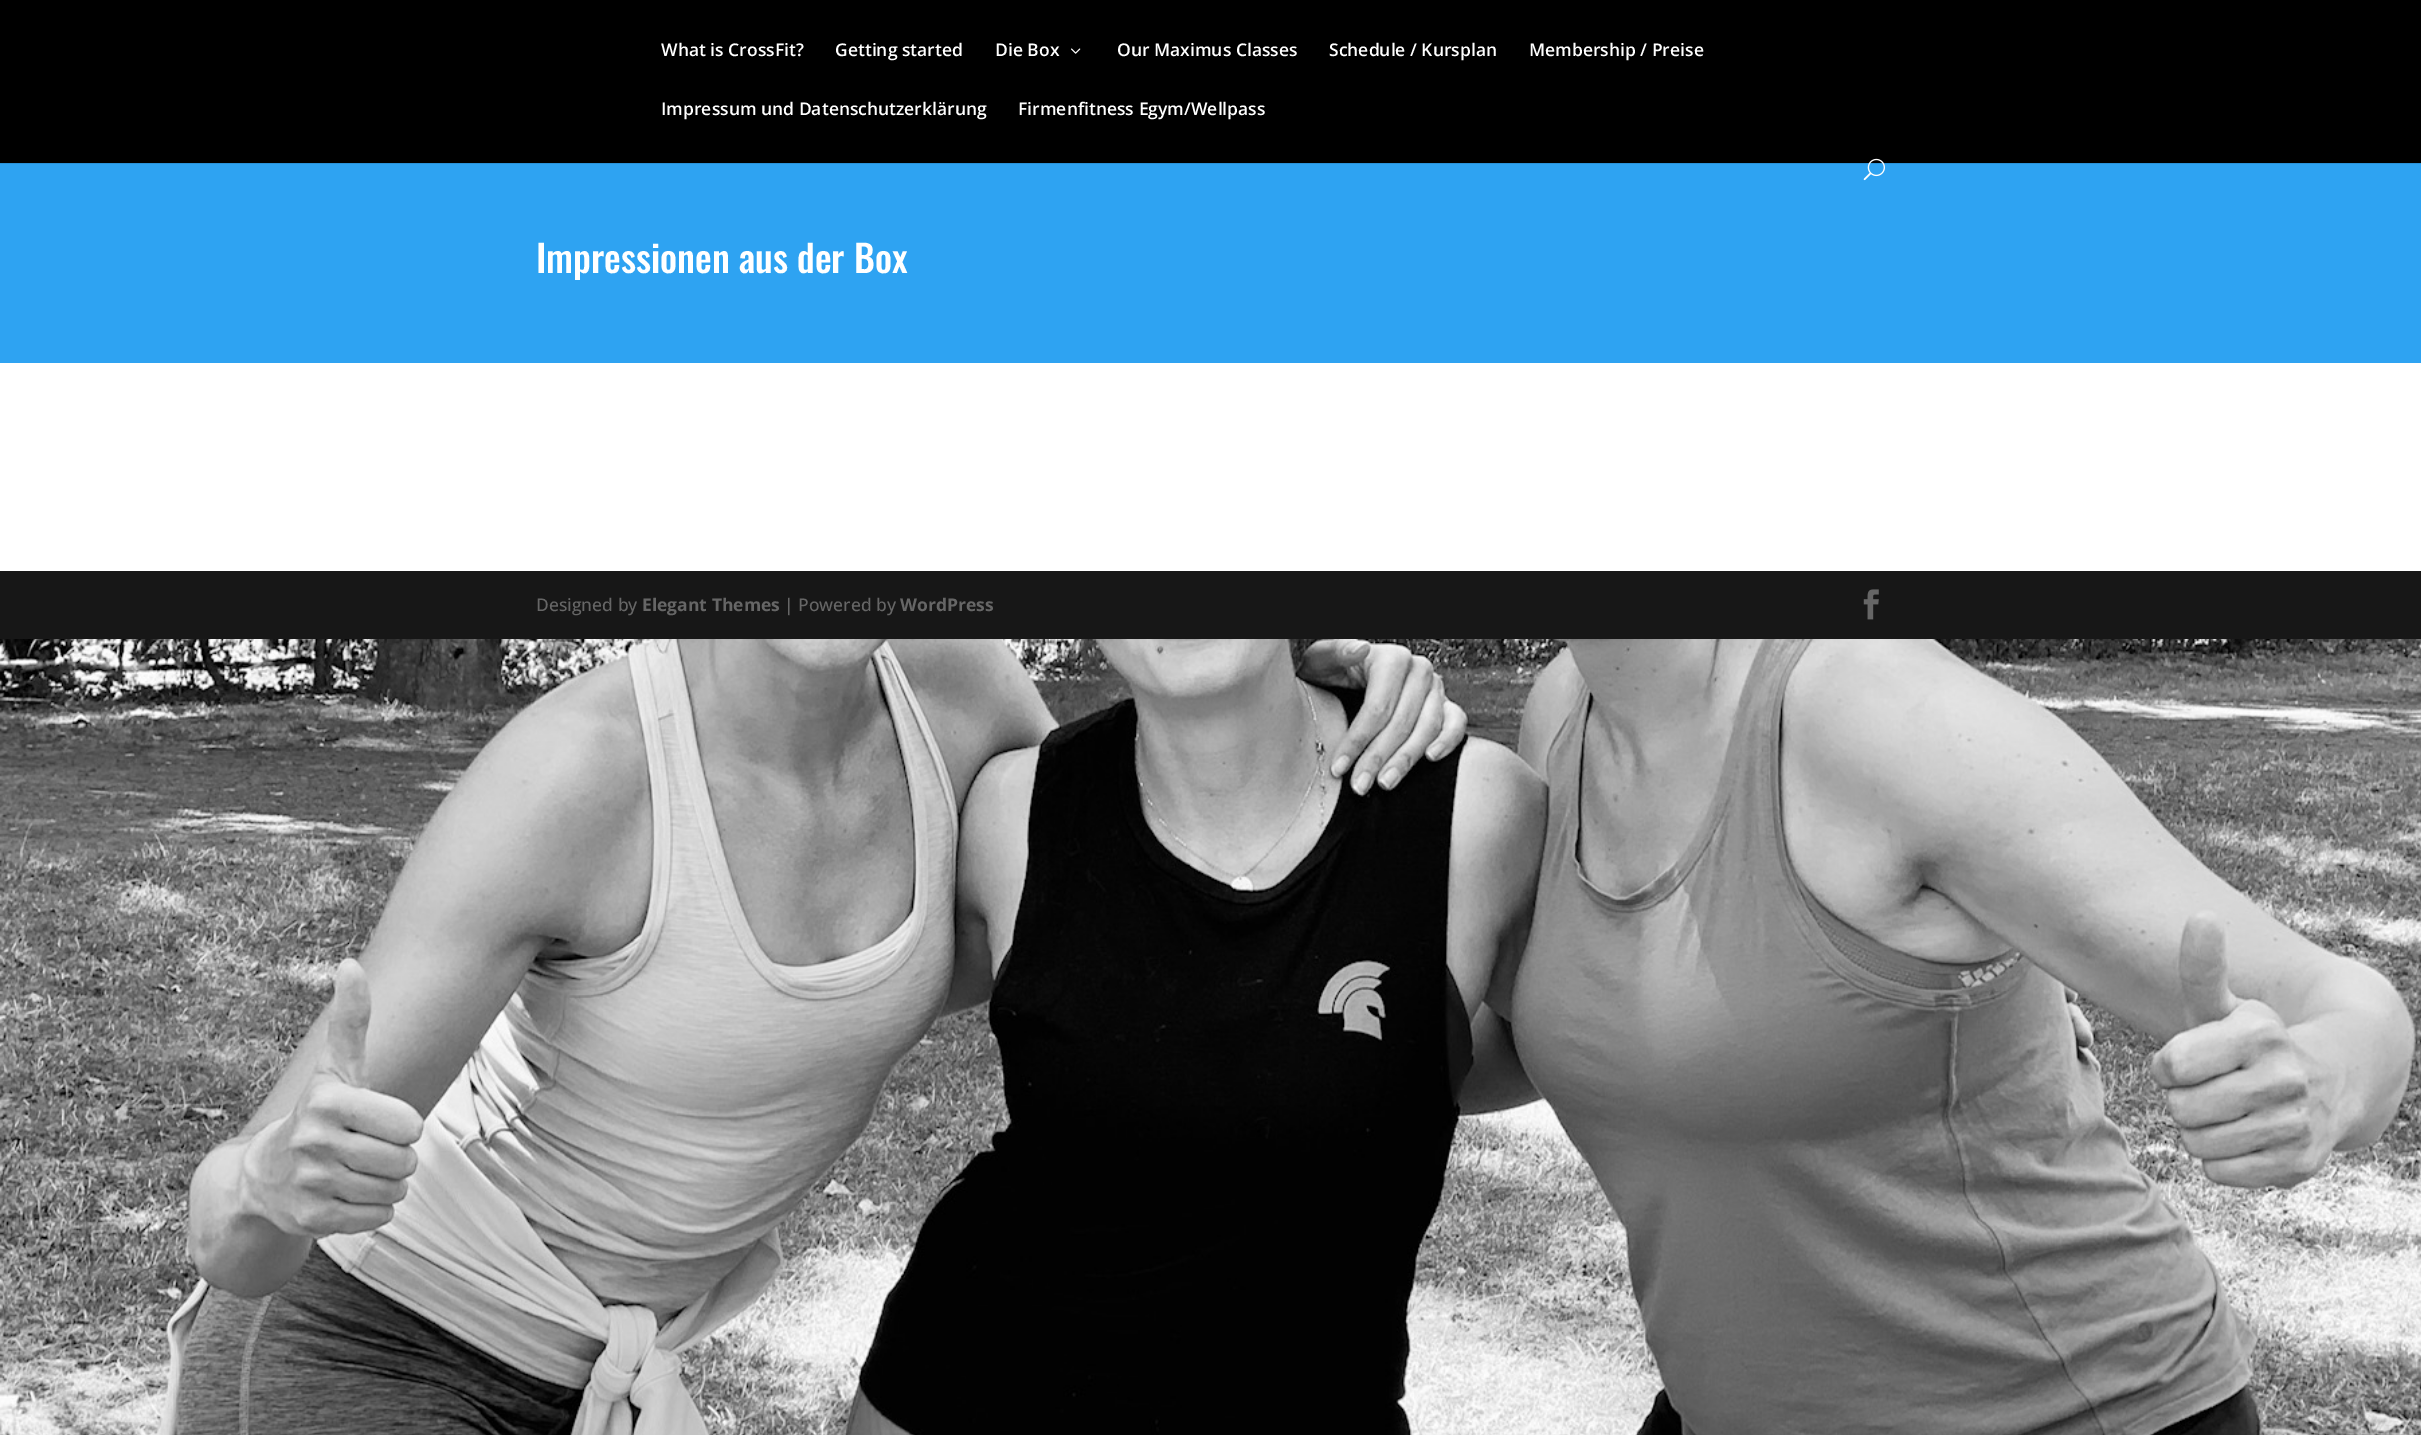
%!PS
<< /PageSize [2421 1435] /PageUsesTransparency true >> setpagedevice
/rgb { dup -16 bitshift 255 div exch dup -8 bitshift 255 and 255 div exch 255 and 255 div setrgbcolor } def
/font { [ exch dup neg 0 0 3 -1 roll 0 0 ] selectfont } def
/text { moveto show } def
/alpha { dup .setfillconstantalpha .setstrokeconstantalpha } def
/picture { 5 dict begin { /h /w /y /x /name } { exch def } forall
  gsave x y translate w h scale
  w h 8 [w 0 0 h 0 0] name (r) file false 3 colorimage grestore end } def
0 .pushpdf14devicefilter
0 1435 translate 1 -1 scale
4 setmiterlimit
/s1 { /OpenSans-SemiBold 17.5 font 16#FFFFFF rgb } def
/s2 { /Oswald-Medium 37.5 font 16#FFFFFF rgb } def
/s3 { /OpenSans-Medium 17.5 font 16#666666 rgb } def
/s4 { /OpenSans-Bold 17.5 font 16#666666 rgb } def
16#FFFFFF rgb
0 0 2421 1435 rectfill
(pic1.raw) 0 639 2421 796 picture
16#2EA3F2 rgb
0 163 2421 200 rectfill
0.1 alpha
16#000000 rgb
0 163 2421 1 rectfill
1 alpha
0 0 2421 163 rectfill
s1
(What is CrossFit?) 661 56 text
(Getting started) 835 56 text
(Die Box) 995 56 text
(pic2.raw) 1071 48 10 6 picture
(Our Maximus Classes) 1117 56 text
(Schedule / Kursplan) 1329 56 text
(Membership / Preise) 1529 56 text
(Impressum und Datenschutzerklärung) 661 115 text
(Firmenfitness Egym/Wellpass) 1018 115 text
(pic3.raw) 1863 158 22 23 picture
s2
(Impressionen aus der Box) 536 273 text
16#171717 rgb
0 571 2421 68 rectfill
s3
(Designed by) 536 611 text
s4
(Elegant Themes) 642 611 text
s3
(| Powered by) 784 611 text
s4
(WordPress) 900 611 text
(pic4.raw) 1863 589 16 31 picture
.poppdf14devicefilter showpage
